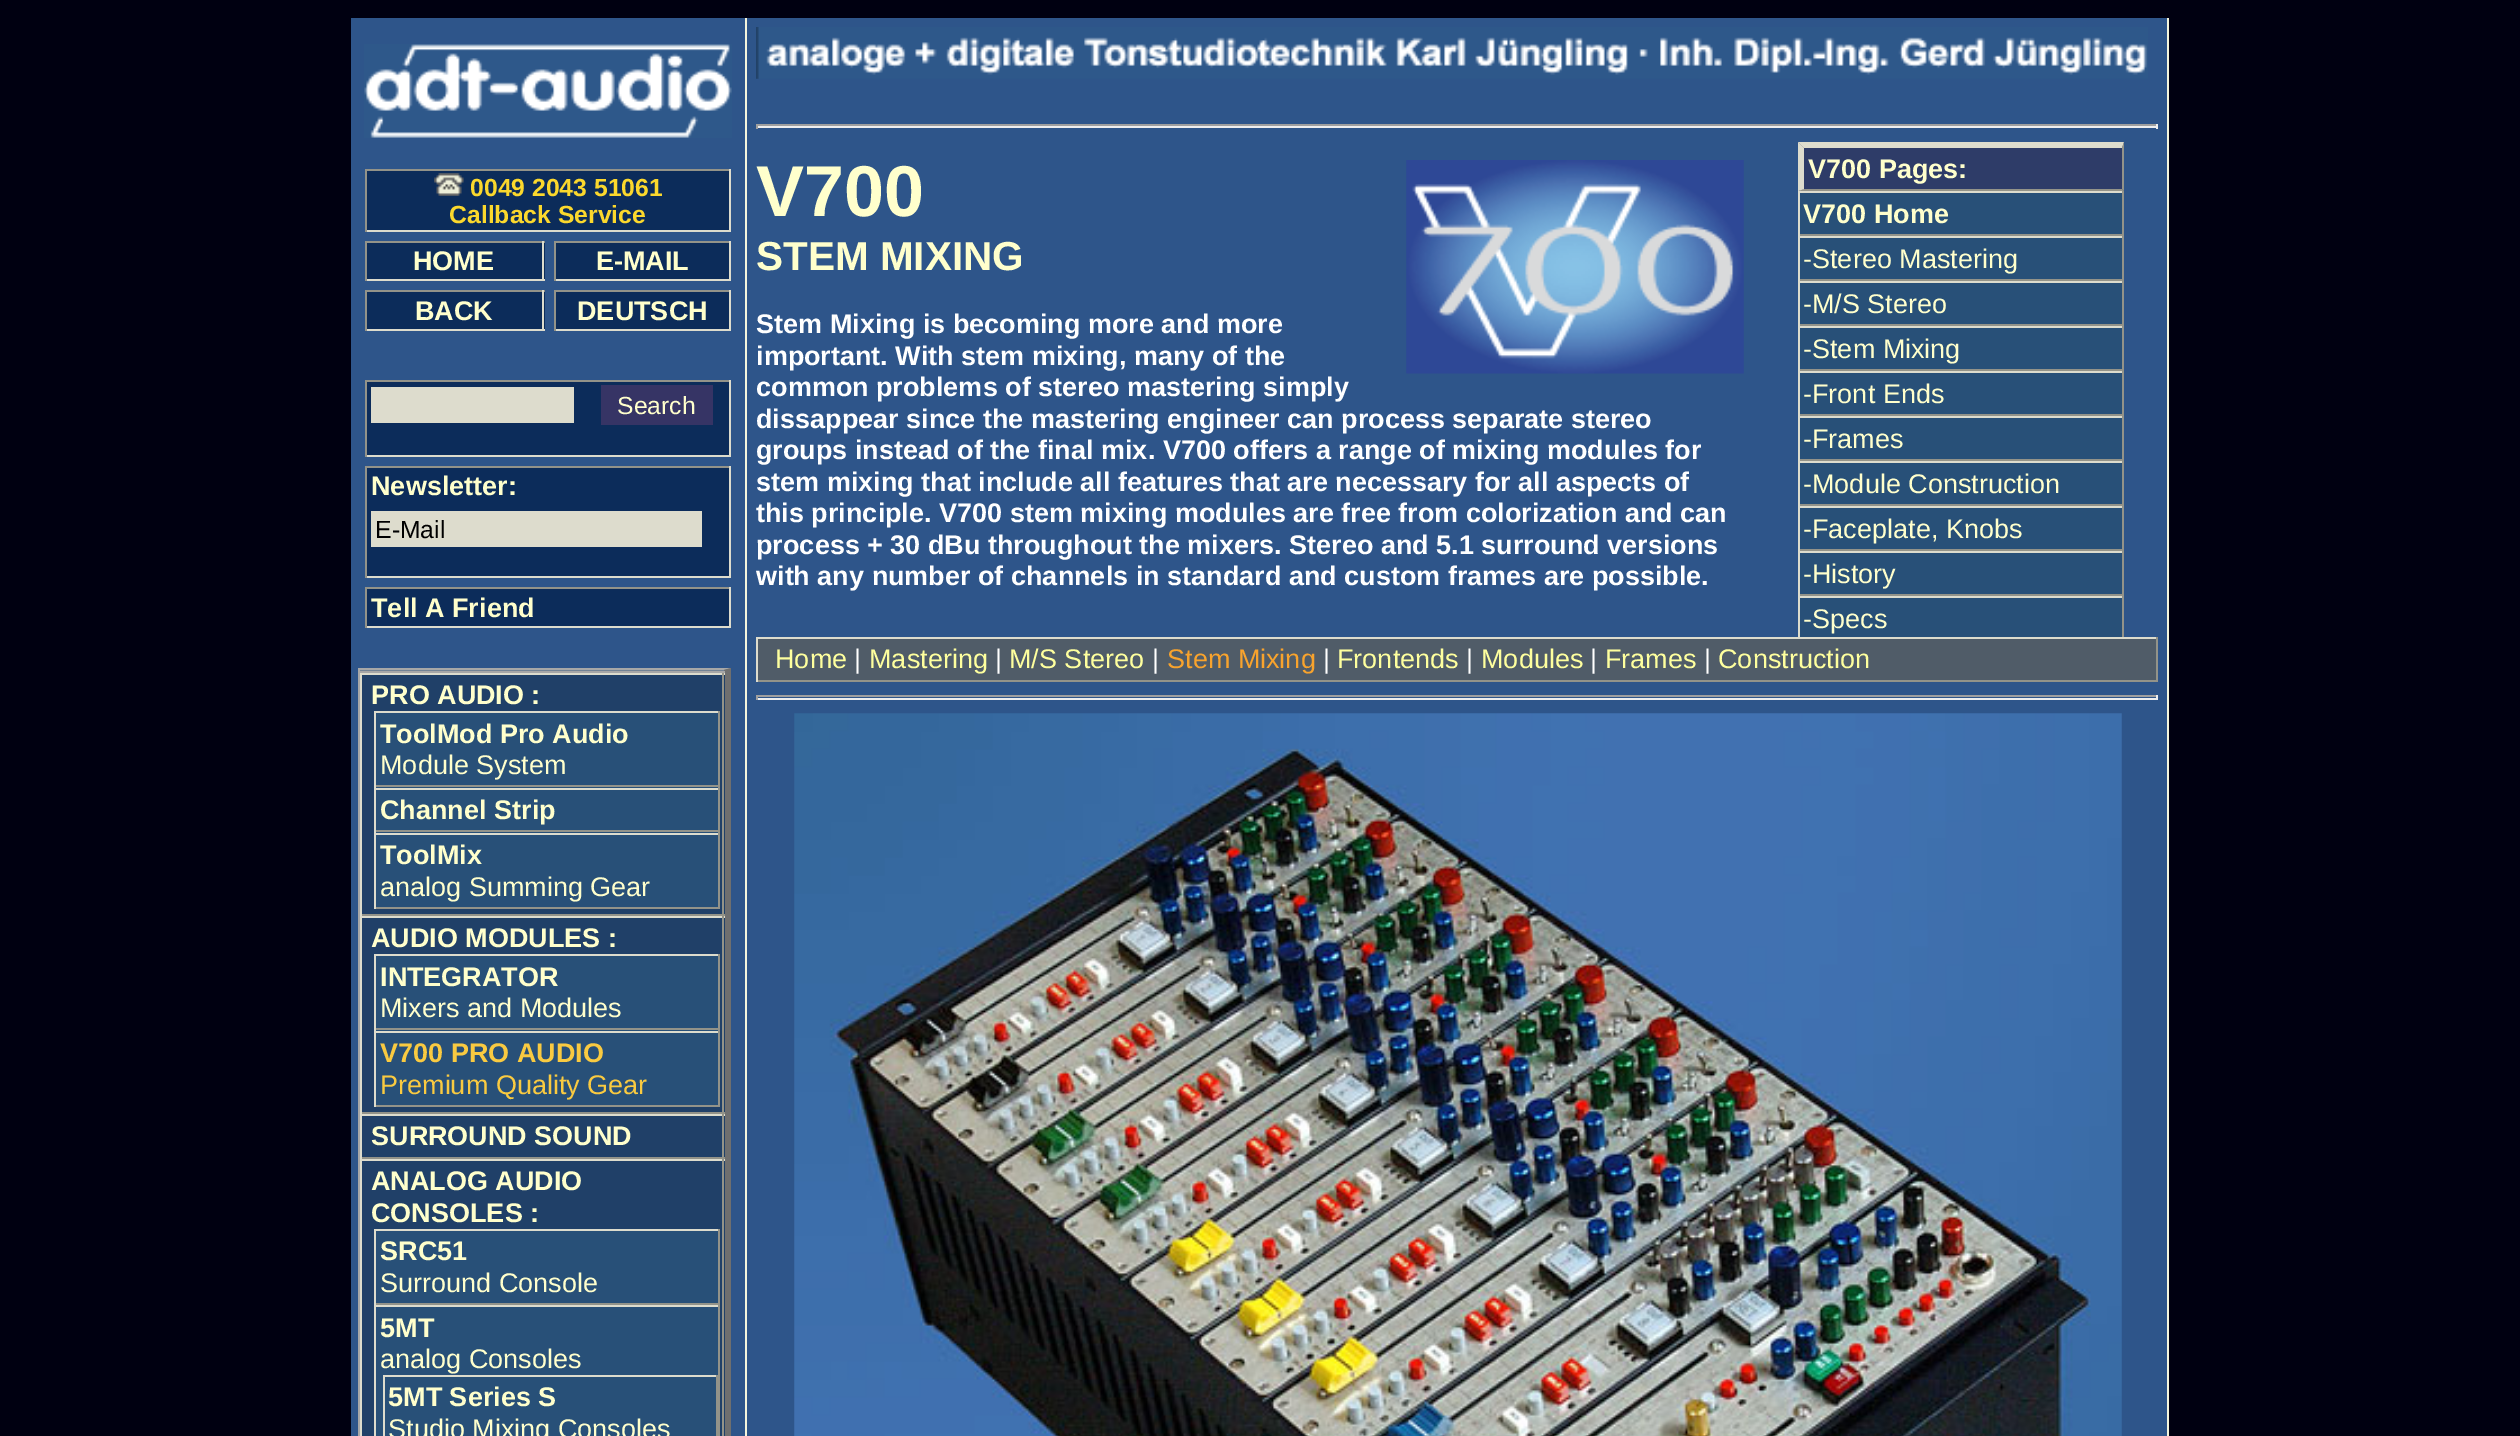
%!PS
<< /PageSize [2520 1436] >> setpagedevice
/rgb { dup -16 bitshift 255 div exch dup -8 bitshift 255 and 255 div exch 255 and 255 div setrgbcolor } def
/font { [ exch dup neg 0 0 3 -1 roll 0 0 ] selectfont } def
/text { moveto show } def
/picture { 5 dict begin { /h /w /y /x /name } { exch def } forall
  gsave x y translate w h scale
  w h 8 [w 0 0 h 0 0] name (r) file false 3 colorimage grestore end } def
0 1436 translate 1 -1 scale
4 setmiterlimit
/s1 { /LiberationSans-Bold 24.75 font 16#FBD82D rgb } def
/s2 { /LiberationSans-Bold 27 font 16#FFFFCC rgb } def
/s3 { /LiberationSans-Regular 24.75 font 16#FFFFCC rgb } def
/s4 { /LiberationSans-Regular 24.75 font 16#000000 rgb } def
/s5 { /LiberationSans-Regular 27 font 16#FFFFCC rgb } def
/s6 { /LiberationSans-Bold 27 font 16#F9CA41 rgb } def
/s7 { /LiberationSans-Regular 27 font 16#F9CA41 rgb } def
/s8 { /LiberationSans-Bold 72 font 16#FFFFCC rgb } def
/s9 { /LiberationSans-Bold 40.5 font 16#FFFFCC rgb } def
/s10 { /LiberationSans-Bold 27 font 16#FFFFFF rgb } def
/s11 { /LiberationSans-Regular 27 font 16#FEFF9E rgb } def
/s12 { /LiberationSans-Regular 27 font 16#FFFFFF rgb } def
/s13 { /LiberationSans-Regular 27 font 16#F8A32D rgb } def
16#000011 rgb
0 0 2520 1436 rectfill
16#2E558A rgb
351 18 1816 1418 rectfill
16#0C2C5A rgb
367 171 362 59 rectfill
16#939389 rgb
365 169 366 2 rectfill
16#DDDCCD rgb
729 169 2 63 rectfill
365 230 366 2 rectfill
16#939389 rgb
365 169 2 63 rectfill
(pic1.raw) 434 173 30 23 picture
s1
(0049 2043 51061) 470 196 text
(Callback Service) 449 223 text
16#0C2C5A rgb
367 243 178 36 rectfill
16#939389 rgb
365 241 180 2 rectfill
16#DDDCCD rgb
542 241 2 40 rectfill
365 279 180 2 rectfill
16#939389 rgb
365 241 2 40 rectfill
s2
(HOME) 413 270 text
16#0C2C5A rgb
556 243 173 36 rectfill
16#939389 rgb
554 241 177 2 rectfill
16#DDDCCD rgb
729 241 2 40 rectfill
554 279 177 2 rectfill
16#939389 rgb
554 241 2 40 rectfill
s2
(E-MAIL) 596 270 text
16#0C2C5A rgb
367 292 178 37 rectfill
16#939389 rgb
365 290 180 2 rectfill
16#DDDCCD rgb
542 290 2 41 rectfill
365 329 180 2 rectfill
16#939389 rgb
365 290 2 41 rectfill
s2
(BACK) 415 320 text
16#0C2C5A rgb
556 292 173 37 rectfill
16#939389 rgb
554 290 177 2 rectfill
16#DDDCCD rgb
729 290 2 41 rectfill
554 329 177 2 rectfill
16#939389 rgb
554 290 2 41 rectfill
s2
(DEUTSCH) 577 320 text
16#0C2C5A rgb
367 382 362 73 rectfill
16#939389 rgb
365 380 366 2 rectfill
16#DDDCCD rgb
729 380 2 77 rectfill
365 455 366 2 rectfill
16#939389 rgb
365 380 2 77 rectfill
16#DDDCCD rgb
371 387 203 36 rectfill
16#363465 rgb
601 385 112 40 rectfill
s3
(Search) 617 414 text
16#0C2C5A rgb
367 468 362 108 rectfill
16#939389 rgb
365 466 366 2 rectfill
16#DDDCCD rgb
729 466 2 112 rectfill
365 576 366 2 rectfill
16#939389 rgb
365 466 2 112 rectfill
s2
(Newsletter:) 371 495 text
16#DDDCCD rgb
371 511 331 36 rectfill
s4
(E-Mail) 375 538 text
16#0C2C5A rgb
367 589 362 37 rectfill
16#939389 rgb
365 587 366 2 rectfill
16#DDDCCD rgb
729 587 2 41 rectfill
365 626 366 2 rectfill
16#939389 rgb
365 587 2 41 rectfill
s2
(Tell A Friend) 371 617 text
16#738394 rgb
360 668 371 3 rectfill
16#A7A7A7 rgb
358 668 moveto 731 668 lineto 724 670 lineto 360 670 lineto closepath fill
16#6F6F6F rgb
731 668 moveto 731 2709 lineto 724 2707 lineto 724 670 lineto closepath fill
16#A7A7A7 rgb
358 668 2 768 rectfill
360 671 365 2 rectfill
16#204068 rgb
362 675 363 239 rectfill
16#DDDCCD rgb
360 673 365 2 rectfill
16#939389 rgb
722 673 2 243 rectfill
360 914 365 2 rectfill
16#DDDCCD rgb
360 673 2 243 rectfill
s2
(PRO AUDIO :) 371 704 text
16#285078 rgb
376 713 342 75 rectfill
16#DDDCCD rgb
374 711 346 2 rectfill
16#939389 rgb
718 711 2 77 rectfill
374 785 346 2 rectfill
16#DDDCCD rgb
374 711 2 77 rectfill
s2
(ToolMod Pro Audio) 380 743 text
s5
(Module System) 380 774 text
16#285078 rgb
376 790 342 43 rectfill
16#DDDCCD rgb
374 788 346 2 rectfill
16#939389 rgb
718 788 2 45 rectfill
374 830 346 2 rectfill
16#DDDCCD rgb
374 788 2 45 rectfill
s2
(Channel Strip) 380 819 text
16#285078 rgb
376 835 342 72 rectfill
16#DDDCCD rgb
374 833 346 2 rectfill
16#939389 rgb
718 833 2 76 rectfill
374 907 346 2 rectfill
16#DDDCCD rgb
374 833 2 76 rectfill
s2
(ToolMix) 380 864 text
s5
(analog Summing Gear) 380 896 text
16#204068 rgb
362 918 363 194 rectfill
16#DDDCCD rgb
360 916 365 2 rectfill
16#939389 rgb
722 916 2 198 rectfill
360 1112 365 2 rectfill
16#DDDCCD rgb
360 916 2 198 rectfill
s2
(AUDIO MODULES :) 371 947 text
16#285078 rgb
376 956 342 75 rectfill
16#DDDCCD rgb
374 954 346 2 rectfill
16#939389 rgb
718 954 2 77 rectfill
374 1028 346 2 rectfill
16#DDDCCD rgb
374 954 2 77 rectfill
s2
(INTEGRATOR) 380 986 text
s5
(Mixers and Modules) 380 1017 text
16#285078 rgb
376 1033 342 72 rectfill
16#DDDCCD rgb
374 1031 346 2 rectfill
16#939389 rgb
718 1031 2 76 rectfill
374 1105 346 2 rectfill
16#DDDCCD rgb
374 1031 2 76 rectfill
s6
(V700 PRO AUDIO) 380 1062 text
s7
(Premium Quality Gear) 380 1094 text
16#204068 rgb
362 1116 363 41 rectfill
16#DDDCCD rgb
360 1114 365 2 rectfill
16#939389 rgb
722 1114 2 45 rectfill
360 1157 365 2 rectfill
16#DDDCCD rgb
360 1114 2 45 rectfill
s2
(SURROUND SOUND) 371 1145 text
16#204068 rgb
362 1161 363 275 rectfill
16#DDDCCD rgb
360 1159 365 2 rectfill
16#939389 rgb
722 1159 2 277 rectfill
16#DDDCCD rgb
360 1159 2 277 rectfill
s2
(ANALOG AUDIO) 371 1190 text
(CONSOLES :) 371 1222 text
16#285078 rgb
376 1231 342 72 rectfill
16#DDDCCD rgb
374 1229 346 2 rectfill
16#939389 rgb
718 1229 2 76 rectfill
374 1303 346 2 rectfill
16#DDDCCD rgb
374 1229 2 76 rectfill
s2
(SRC51) 380 1260 text
s5
(Surround Console) 380 1292 text
16#285078 rgb
376 1307 342 129 rectfill
16#DDDCCD rgb
374 1305 346 2 rectfill
16#939389 rgb
718 1305 2 131 rectfill
16#DDDCCD rgb
374 1305 2 131 rectfill
s2
(5MT) 380 1337 text
s5
(analog Consoles) 380 1368 text
16#DDDCCD rgb
383 1375 335 2 rectfill
16#939389 rgb
716 1375 2 61 rectfill
16#DDDCCD rgb
383 1375 2 61 rectfill
s2
(5MT Series S) 388 1406 text
s5
(Studio Mixing Consoles) 388 1438 text
(pic2.raw) 364 44 368 94 picture
16#F5F5DC rgb
2167 18 2 1418 rectfill
745 18 2 1418 rectfill
(pic3.raw) 756 27 1392 52 picture
16#9F9F9F rgb
756 124 1402 2 rectfill
16#EEEEEE rgb
2156 124 2 5 rectfill
756 126 1402 2 rectfill
16#9F9F9F rgb
756 124 2 5 rectfill
s8
(V700) 756 216 text
(pic4.raw) 1406 160 338 214 picture
s9
(STEM MIXING) 756 270 text
s10
(Stem Mixing is becoming more and more) 756 333 text
(important. With stem mixing, many of the) 756 365 text
(common problems of stereo mastering simply) 756 396 text
(dissappear since the mastering engineer can process separate stereo) 756 428 text
(groups instead of the final mix. V700 offers a range of mixing modules for) 756 459 text
(stem mixing that include all features that are necessary for all aspects of) 756 491 text
(this principle. V700 stem mixing modules are free from colorization and can) 756 522 text
(process + 30 dBu throughout the mixers. Stereo and 5.1 surround versions) 756 554 text
(with any number of channels in standard and custom frames are possible.) 756 585 text
16#2E3C68 rgb
1798 142 326 49 rectfill
16#DDDCCD rgb
1798 142 moveto 2124 142 lineto 2122 148 lineto 1804 148 lineto closepath fill
16#939389 rgb
2124 142 moveto 2124 191 lineto 2122 189 lineto 2122 148 lineto closepath fill
2124 191 moveto 1798 191 lineto 1804 189 lineto 2122 189 lineto closepath fill
16#DDDCCD rgb
1798 191 moveto 1798 142 lineto 1804 148 lineto 1804 189 lineto closepath fill
s2
(V700 Pages:) 1808 178 text
16#285078 rgb
1800 193 322 41 rectfill
16#DDDCCD rgb
1798 191 326 2 rectfill
16#939389 rgb
2122 191 2 45 rectfill
1798 234 326 2 rectfill
16#DDDCCD rgb
1798 191 2 45 rectfill
s2
(V700 Home) 1803 223 text
16#285078 rgb
1800 238 322 41 rectfill
16#DDDCCD rgb
1798 236 326 2 rectfill
16#939389 rgb
2122 236 2 45 rectfill
1798 279 326 2 rectfill
16#DDDCCD rgb
1798 236 2 45 rectfill
s5
(-Stereo Mastering) 1803 268 text
16#285078 rgb
1800 283 322 41 rectfill
16#DDDCCD rgb
1798 281 326 2 rectfill
16#939389 rgb
2122 281 2 45 rectfill
1798 324 326 2 rectfill
16#DDDCCD rgb
1798 281 2 45 rectfill
s5
(-M/S Stereo) 1803 313 text
16#285078 rgb
1800 328 322 41 rectfill
16#DDDCCD rgb
1798 326 326 2 rectfill
16#939389 rgb
2122 326 2 45 rectfill
1798 369 326 2 rectfill
16#DDDCCD rgb
1798 326 2 45 rectfill
s5
(-Stem Mixing) 1803 358 text
16#285078 rgb
1800 373 322 41 rectfill
16#DDDCCD rgb
1798 371 326 2 rectfill
16#939389 rgb
2122 371 2 45 rectfill
1798 414 326 2 rectfill
16#DDDCCD rgb
1798 371 2 45 rectfill
s5
(-Front Ends) 1803 403 text
16#285078 rgb
1800 418 322 41 rectfill
16#DDDCCD rgb
1798 416 326 2 rectfill
16#939389 rgb
2122 416 2 45 rectfill
1798 459 326 2 rectfill
16#DDDCCD rgb
1798 416 2 45 rectfill
s5
(-Frames) 1803 448 text
16#285078 rgb
1800 463 322 41 rectfill
16#DDDCCD rgb
1798 461 326 2 rectfill
16#939389 rgb
2122 461 2 45 rectfill
1798 504 326 2 rectfill
16#DDDCCD rgb
1798 461 2 45 rectfill
s5
(-Module Construction) 1803 493 text
16#285078 rgb
1800 508 322 41 rectfill
16#DDDCCD rgb
1798 506 326 2 rectfill
16#939389 rgb
2122 506 2 45 rectfill
1798 549 326 2 rectfill
16#DDDCCD rgb
1798 506 2 45 rectfill
s5
(-Faceplate, Knobs) 1803 538 text
16#285078 rgb
1800 553 322 41 rectfill
16#DDDCCD rgb
1798 551 326 2 rectfill
16#939389 rgb
2122 551 2 45 rectfill
1798 594 326 2 rectfill
16#DDDCCD rgb
1798 551 2 45 rectfill
s5
(-History) 1803 583 text
16#285078 rgb
1800 598 322 39 rectfill
16#DDDCCD rgb
1798 596 326 2 rectfill
16#939389 rgb
2122 596 2 41 rectfill
16#DDDCCD rgb
1798 596 2 41 rectfill
s5
(-Specs) 1803 628 text
16#505C68 rgb
758 639 1398 41 rectfill
16#DDDCCD rgb
756 637 1402 2 rectfill
16#939389 rgb
2156 637 2 45 rectfill
756 680 1402 2 rectfill
16#DDDCCD rgb
756 637 2 45 rectfill
s11
(Home) 775 668 text
s12
(|) 854 668 text
s11
(Mastering) 869 668 text
s12
(|) 995 668 text
s11
(M/S Stereo) 1009 668 text
s12
(|) 1152 668 text
s13
(Stem Mixing) 1167 668 text
s12
(|) 1323 668 text
s11
(Frontends) 1337 668 text
s12
(|) 1466 668 text
s11
(Modules) 1481 668 text
s12
(|) 1590 668 text
s11
(Frames) 1605 668 text
s12
(|) 1704 668 text
s11
(Construction) 1718 668 text
16#9F9F9F rgb
756 695 1402 2 rectfill
16#EEEEEE rgb
2156 695 2 5 rectfill
756 698 1402 2 rectfill
16#9F9F9F rgb
756 695 2 5 rectfill
(pic5.raw) 794 713 1328 723 picture
showpage
